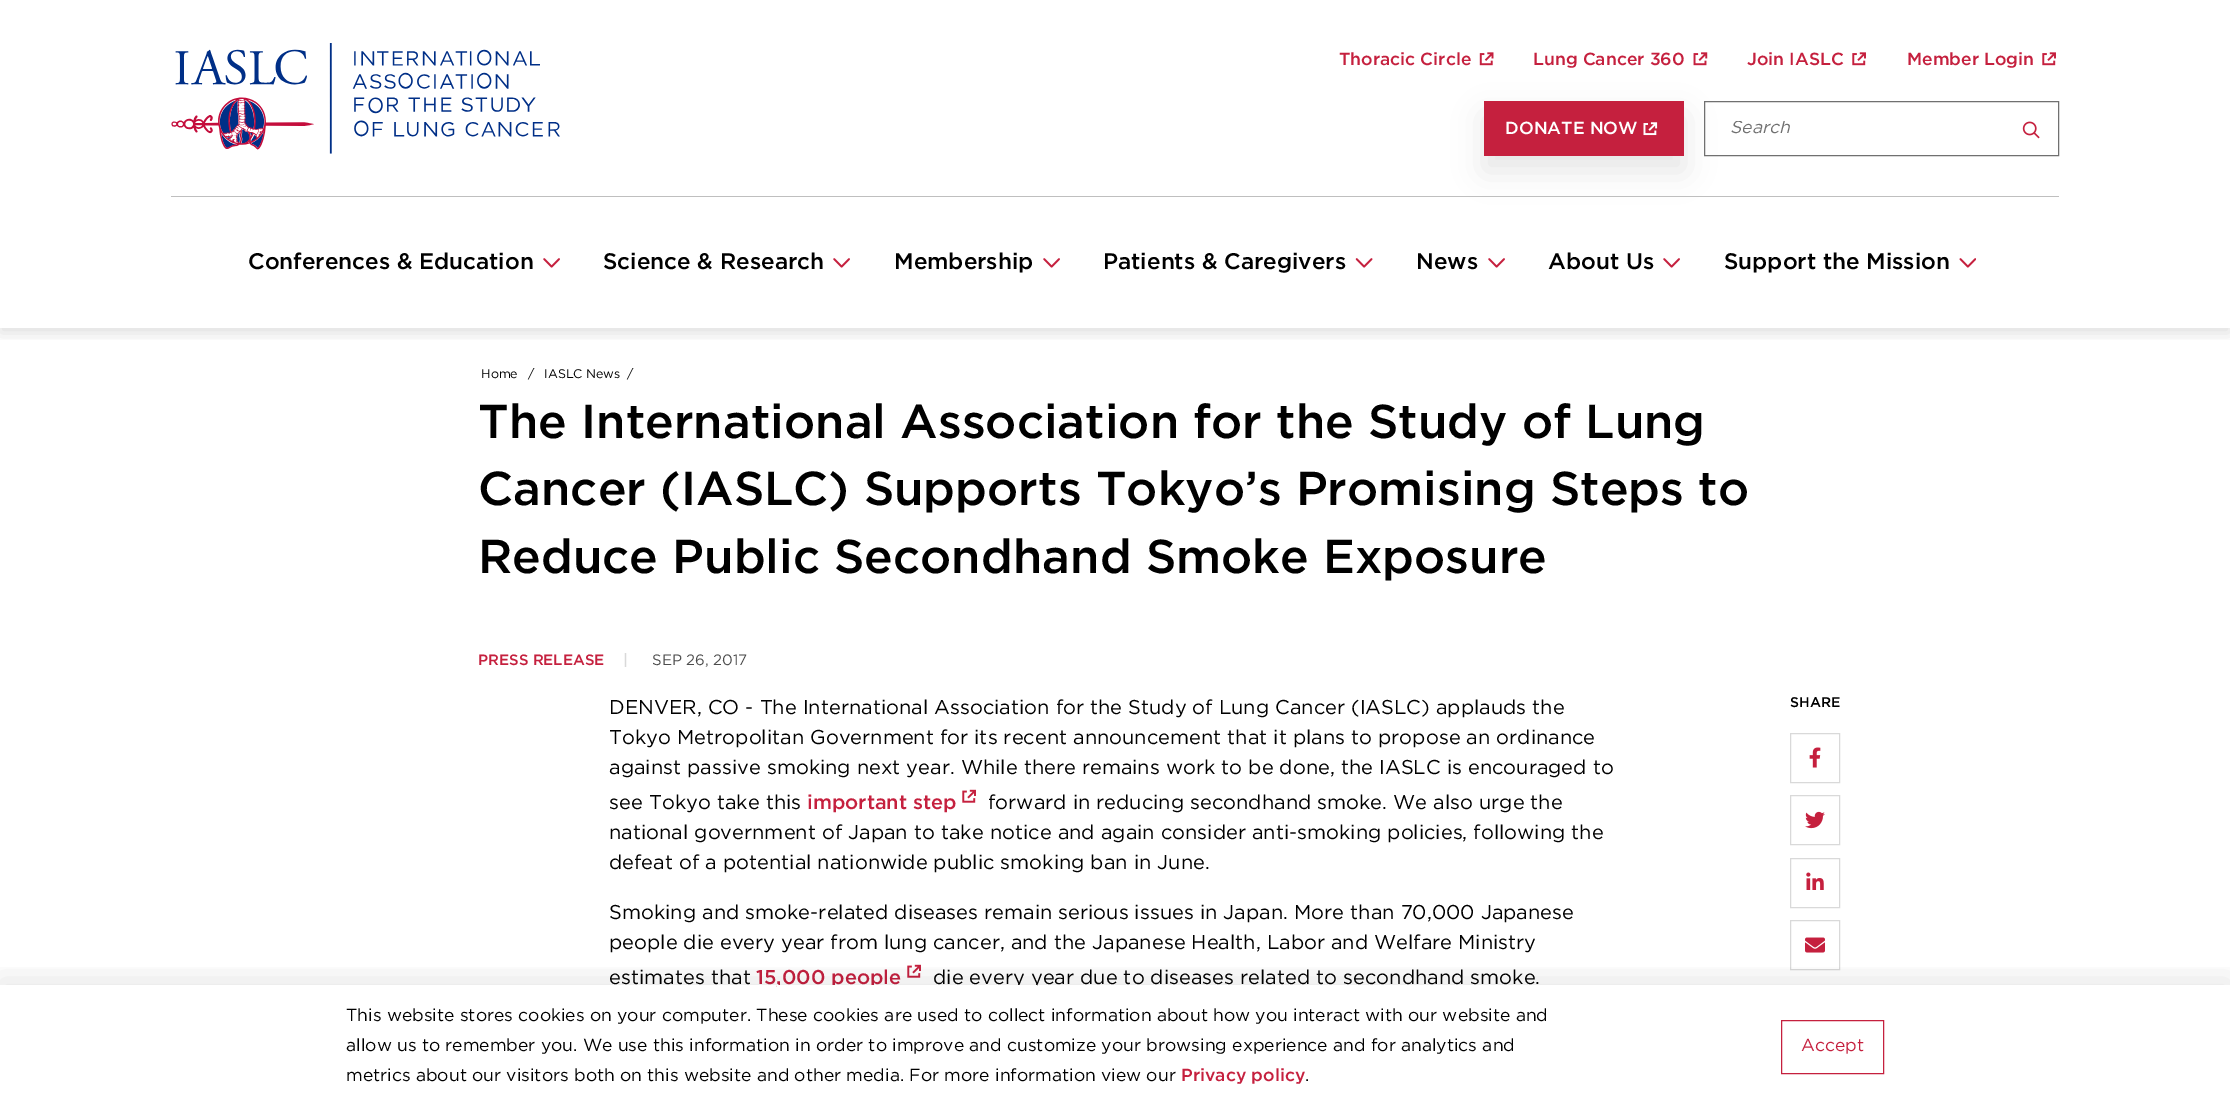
%!PS
<< /PageSize [2230 1099] /PageUsesTransparency true >> setpagedevice
/rgb { dup -16 bitshift 255 div exch dup -8 bitshift 255 and 255 div exch 255 and 255 div setrgbcolor } def
/font { [ exch dup neg 0 0 3 -1 roll 0 0 ] selectfont } def
/text { moveto show } def
/alpha { dup .setfillconstantalpha .setstrokeconstantalpha } def
/roundrect { 5 dict begin { /r /h /w /y /x } { exch def } forall
  x r add y moveto x w add y 2 copy h add r arct x w add y h add x 1 index r arct
  x y h add x y r arct x y 2 copy exch w add exch r arct closepath end } def
/shadow { 12 dict begin { /a /b /q /h /w /y /x } { exch def } forall gsave /was 0 def
  9 -2 -9 { dup b mul 4 div /e exch def 1 sub .425 mul 2.718 exch exp 1 add a .99 .min exch div /now exch def
    1 1 now sub 1 was sub div sub alpha /was now def
    w h .min e 2 mul add 0 gt { x e sub y e sub w e 2 mul add h e 2 mul add
      q e add b .6 mul add w h .min 2 div e add .min 0 .max roundrect fill } if } for grestore end } def
/picture { 5 dict begin { /h /w /y /x /name } { exch def } forall
  gsave x y translate w h scale
  w h 8 [w 0 0 h 0 0] name (r) file false 3 colorimage grestore end } def
0 .pushpdf14devicefilter
0 1099 translate 1 -1 scale
4 setmiterlimit
/s1 { /Gotham-Medium 17.5 font 16#C5203E rgb } def
/s2 { /Gotham-Medium 17.5 font 16#FFFFFF rgb } def
/s3 { /Gotham-Italic 17.5 font 16#707070 rgb } def
/s4 { /Gotham-Medium 22.5 font 16#000000 rgb } def
/s5 { /Gotham-Regular 12.5 font 16#000000 rgb } def
/s6 { /Gotham-Medium 47.5 font 16#000000 rgb } def
/s7 { /Gotham-Medium 15 font 16#C5203E rgb } def
/s8 { /Gotham-Medium 15 font 16#D9D9D9 rgb } def
/s9 { /Gotham-Regular 15 font 16#4C4C4C rgb } def
/s10 { /Gotham-Regular 20 font 16#000000 rgb } def
/s11 { /Gotham-Medium 20 font 16#C5203E rgb } def
/s12 { /Gotham-Medium 14 font 16#000000 rgb } def
/s13 { /Gotham-Regular 17.5 font 16#000000 rgb } def
/s14 { /Gotham-Regular 17.5 font 16#C5203E rgb } def
16#FFFFFF rgb
0 0 2230 1099 rectfill
gsave
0 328 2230 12 rectclip
16#000000 rgb
0 5 2230 328 0 7.5 0.12 shadow
grestore
(pic1.raw) 171 43 389 111 picture
s1
(Thoracic Circle) 1339 65 text
(pic2.raw) 1479 52 15 14 picture
(Lung Cancer 360) 1533 65 text
(pic3.raw) 1693 52 15 14 picture
(Join IASLC) 1747 65 text
(pic4.raw) 1852 52 14 14 picture
(Member Login) 1907 65 text
(pic4.raw) 2042 52 14 14 picture
16#000000 rgb
1484 116 200 55 0 15 0.1 shadow
16#C5203E rgb
1484 101 200 55 rectfill
s2
(DONATE NOW) 1505 134 text
(pic5.raw) 1643 122 15 14 picture
16#707070 rgb
1704.5 101.5 354 54 rectstroke
gsave
1730 121 303 17 rectclip
s3
(Search) 1730 133 text
grestore
(pic6.raw) 2022 121 18 18 picture
16#FFFFFF rgb
0 327 2230 1 rectfill
16#BFBFBF rgb
171 196 1888 1 rectfill
s4
(Conferences & Education) 248 269 text
(pic7.raw) 543 258 17 10 picture
(Science & Research) 603 269 text
(pic7.raw) 833 258 17 10 picture
(Membership) 894 269 text
(pic7.raw) 1043 258 17 10 picture
(Patients & Caregivers) 1103 269 text
(pic8.raw) 1355 258 18 10 picture
(News) 1416 269 text
(pic7.raw) 1488 258 17 10 picture
(About Us) 1548 269 text
(pic7.raw) 1663 258 17 10 picture
(Support the Mission) 1724 269 text
(pic9.raw) 1959 258 17 10 picture
s5
(Home) 481 378 text
(/) 528 378 text
(IASLC News) 544 378 text
(/) 627 378 text
s6
(The International Association for the Study of Lung) 478 438 text
(Cancer \(IASLC\) Supports Tokyo’s Promising Steps to) 478 505 text
(Reduce Public Secondhand Smoke Exposure) 478 573 text
s7
(PRESS RELEASE) 478 665 text
s8
(|) 623 665 text
s9
(SEP 26, 2017) 652 665 text
s10
(DENVER, CO - The International Association for the Study of Lung Cancer \(IASLC\) applauds the) 609 714 text
(Tokyo Metropolitan Government for its recent announcement that it plans to propose an ordinance) 609 744 text
(against passive smoking next year. While there remains work to be done, the IASLC is encouraged to) 609 774 text
(see Tokyo take this) 609 809 text
s11
(important step) 807 809 text
(pic10.raw) 962 789 14 14 picture
s10
(forward in reducing secondhand smoke. We also urge the) 988 809 text
(national government of Japan to take notice and again consider anti-smoking policies, following the) 609 839 text
(defeat of a potential nationwide public smoking ban in June.) 609 869 text
(Smoking and smoke-related diseases remain serious issues in Japan. More than 70,000 Japanese) 609 919 text
(people die every year from lung cancer, and the Japanese Health, Labor and Welfare Ministry) 609 949 text
(estimates that) 609 984 text
s11
(15,000 people) 756 984 text
(pic10.raw) 907 964 14 14 picture
s10
(die every year due to diseases related to secondhand smoke.) 933 984 text
s12
(SHARE) 1790 707 text
16#D9D9D9 rgb
1790.5 733.5 49 49 rectstroke
(pic11.raw) 1809 747 12 21 picture
1790.5 795.5 49 49 rectstroke
(pic12.raw) 1805 811 20 18 picture
1790.5 858.5 49 49 rectstroke
(pic13.raw) 1806 872 18 18 picture
1790.5 920.5 49 49 rectstroke
(pic14.raw) 1805 937 20 16 picture
16#FFFFFF rgb
777 985 260 3 rectfill
gsave
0 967 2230 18 rectclip
16#000000 rgb
0 980 2230 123 0 15 0.1 shadow
grestore
s13
(This website stores cookies on your computer. These cookies are used to collect information about how you interact with our website and) 346 1021 text
(allow us to remember you. We use this information in order to improve and customize your browsing experience and for analytics and) 346 1051 text
(metrics about our visitors both on this website and other media. For more information view our) 346 1081 text
s1
(Privacy policy) 1181 1081 text
s13
(.) 1305 1081 text
16#C5203E rgb
1781.5 1020.5 102 53 rectstroke
(Accept) 1801 1051 text
.poppdf14devicefilter showpage
